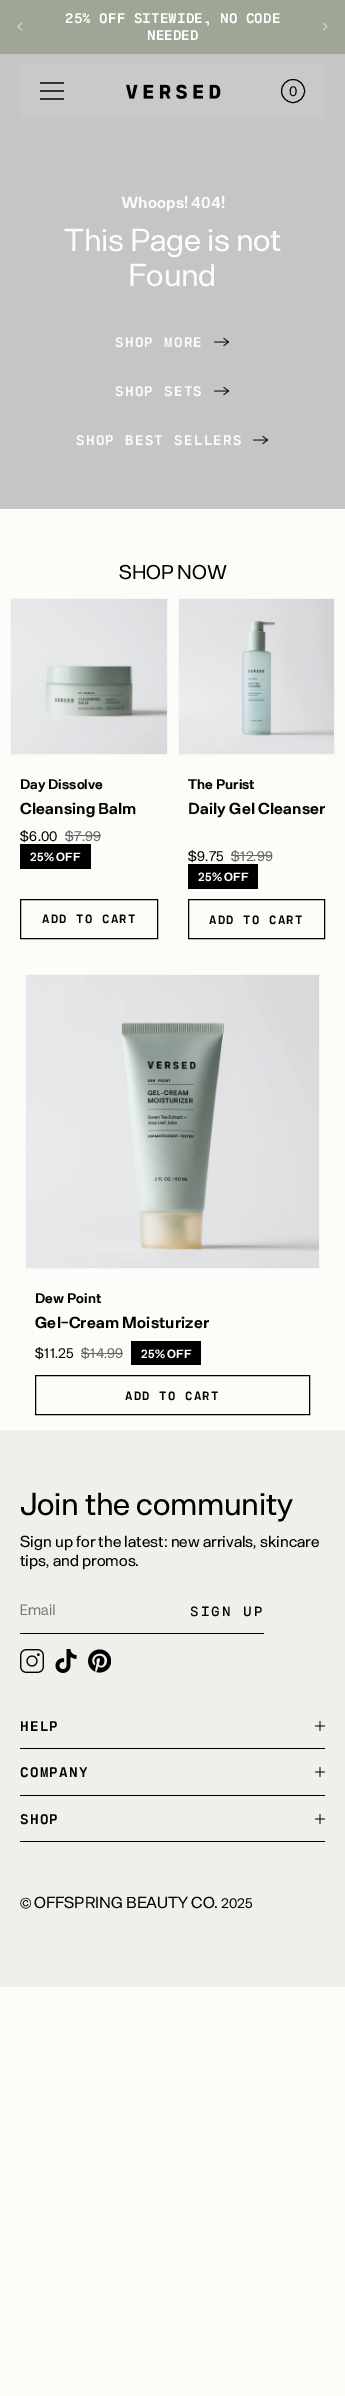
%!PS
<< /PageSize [345 2396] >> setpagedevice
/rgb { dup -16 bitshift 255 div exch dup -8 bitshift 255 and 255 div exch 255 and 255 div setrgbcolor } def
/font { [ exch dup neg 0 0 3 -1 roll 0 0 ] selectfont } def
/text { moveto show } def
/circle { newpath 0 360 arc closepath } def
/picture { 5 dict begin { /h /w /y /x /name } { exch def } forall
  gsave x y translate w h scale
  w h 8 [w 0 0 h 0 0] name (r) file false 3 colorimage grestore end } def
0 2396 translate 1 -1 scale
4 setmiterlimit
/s1 { /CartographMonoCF-Bold 14 font 16#FFFFFF rgb } def
/s2 { /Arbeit-Regular 14 font 16#000000 rgb } def
/s3 { /Arbeit-Regular 20 font 16#000000 rgb } def
/s4 { /Arbeit-Regular 14 font 16#666666 rgb } def
/s5 { /Arbeit-Regular 16 font 16#000000 rgb } def
/s6 { /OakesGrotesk-Regular 14 font 16#767676 rgb } def
16#FDFCF8 rgb
0 0 345 2396 rectfill
16#9FA696 rgb
0 0 345 54 rectfill
s1
(25% OFF SITEWIDE, NO CODE) 65 23 text
(NEEDED) 147 40 text
16#E2E4E0 rgb
0.6 setlinewidth
1 setlinecap
22 23 moveto 18 26.5 lineto 22 30.5 lineto stroke
323 23 moveto 327 26.5 lineto 323 30.5 lineto stroke
16#C5C5C5 rgb
0 54 345 455 rectfill
16#CAC9C8 rgb
20 64 305 54 rectfill
16#333232 rgb
40 82 24 2 rectfill
40 90 24 2 rectfill
40 98 24 2 rectfill
(pic1.raw) 126 84 95 15 picture
16#000000 rgb
1 setlinewidth
0 setlinecap
293 91 11.5 circle stroke
s2
(0) 289 96 text
/Arbeit-Bold 16 font
16#FDFCF8 rgb
121 208 moveto 0.2 0 (Whoops! 404!) ashow
/Arbeit-Regular 32 font
64 251 moveto -0.2 0 (This Page is not) ashow
128 286 moveto -0.2 0 (Found) ashow
/CartographMonoCF-Bold 14 font
115 347 moveto 1.2 0 (SHOP MORE) ashow
(pic2.raw) 214 337 16 10 picture
115 396 moveto 1.2 0 (SHOP SETS) ashow
(pic2.raw) 214 386 16 10 picture
76 445 moveto 1.2 0 (SHOP BEST SELLERS) ashow
(pic2.raw) 253 435 16 10 picture
s3
(SHOP NOW) 119 579 text
16#F6F6F6 rgb
10.5 598.5 157 156 rectstroke
(pic3.raw) 11 599 156 155 picture
/Arbeit-Bold 14 font
16#000000 rgb
20 789 moveto 0.1 0 (Day Dissolve) ashow
/Arbeit-Bold 16 font
20 814 moveto 0.2 0 (Cleansing Balm) ashow
s2
($6.00) 20 841 text
s4
($7.99) 65 841 text
65 835 36 1 rectfill
16#000000 rgb
20 844 71 25 rectfill
/Arbeit-Bold 12 font
16#FFFFFF rgb
30 861 moveto 0.25 0 (25% OFF) ashow
16#000000 rgb
20.5 899.5 137 39 rectstroke
/CartographMonoCF-Bold 12 font
42 923 moveto 1.2 0 (ADD TO CART) ashow
16#F6F6F6 rgb
178.5 598.5 156 156 rectstroke
(pic4.raw) 179 599 155 155 picture
/Arbeit-Bold 14 font
16#000000 rgb
188 789 moveto 0.1 0 (The Purist) ashow
/Arbeit-Bold 16 font
188 814 moveto 0.2 0 (Daily Gel Cleanser) ashow
s2
($9.75) 188 861 text
s4
($12.99) 231 861 text
231 855 41 1 rectfill
16#000000 rgb
188 864 70 25 rectfill
/Arbeit-Bold 12 font
16#FFFFFF rgb
198 881 moveto 0.25 0 (25% OFF) ashow
16#000000 rgb
188.5 899.5 136 39 rectstroke
/CartographMonoCF-Bold 12 font
209 924 moveto 1.2 0 (ADD TO CART) ashow
16#F6F6F6 rgb
25.5 974.5 294 294 rectstroke
(pic5.raw) 26 975 293 293 picture
/Arbeit-Bold 14 font
16#000000 rgb
35 1303 moveto 0.1 0 (Dew Point) ashow
/Arbeit-Bold 16 font
35 1328 moveto 0.2 0 (Gel-Cream Moisturizer) ashow
s2
($11.25) 35 1358 text
s4
($14.99) 81 1358 text
81 1353 42 1 rectfill
16#000000 rgb
131 1341 70 24 rectfill
/Arbeit-Bold 12 font
16#FFFFFF rgb
141 1358 moveto 0.25 0 (25% OFF) ashow
16#000000 rgb
35.5 1375.5 274 39 rectstroke
/CartographMonoCF-Bold 12 font
125 1400 moveto 1.2 0 (ADD TO CART) ashow
16#F1EFEC rgb
0 1430 345 557 rectfill
/Arbeit-Regular 32 font
16#000000 rgb
20 1515 moveto -0.2 0 (Join the community) ashow
s5
(Sign up for the latest: new arrivals, skincare) 20 1547 text
(tips, and promos.) 20 1566 text
20 1633 244 1 rectfill
s6
(Email) 20 1615 text
/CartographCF-Regular 14 font
16#000000 rgb
190 1616 moveto 2 0 (SIGN UP) ashow
(pic6.raw) 20 1649 24 24 picture
(pic7.raw) 55 1649 22 24 picture
(pic8.raw) 88 1649 23 24 picture
20 1748 305 1 rectfill
/CartographMonoCF-Bold 14 font
20 1731 moveto 1.2 0 (HELP) ashow
(pic9.raw) 315 1721 10 10 picture
20 1795 305 1 rectfill
20 1777 moveto 1.2 0 (COMPANY) ashow
(pic9.raw) 315 1767 10 10 picture
20 1841 305 1 rectfill
20 1824 moveto 1.2 0 (SHOP) ashow
(pic9.raw) 315 1814 10 10 picture
s2
(©) 20 1908 text
s5
(OFFSPRING BEAUTY CO.) 34 1908 text
s2
(2025) 221 1908 text
showpage
